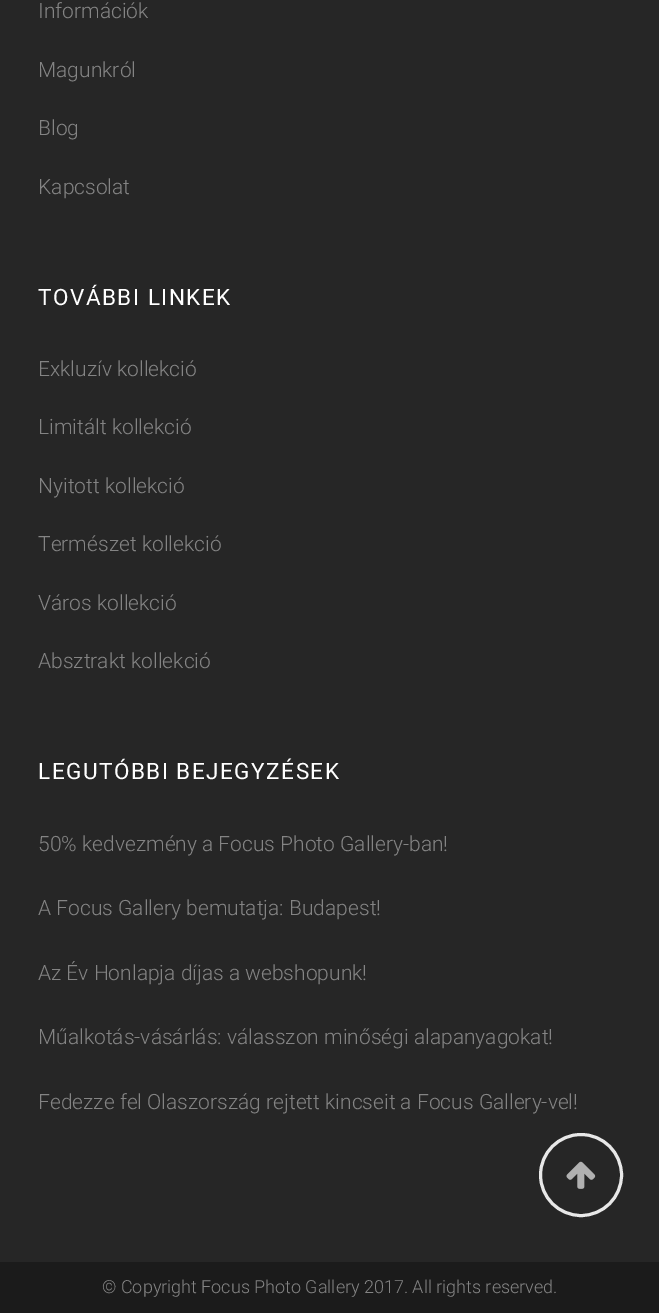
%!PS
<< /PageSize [659 1313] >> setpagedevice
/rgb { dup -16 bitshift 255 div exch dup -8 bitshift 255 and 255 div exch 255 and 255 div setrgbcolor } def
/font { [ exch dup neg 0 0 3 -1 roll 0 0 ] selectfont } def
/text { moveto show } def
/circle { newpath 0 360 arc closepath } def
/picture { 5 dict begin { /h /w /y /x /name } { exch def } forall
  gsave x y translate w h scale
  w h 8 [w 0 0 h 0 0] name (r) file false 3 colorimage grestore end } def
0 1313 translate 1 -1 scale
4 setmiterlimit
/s1 { /Roboto-Light 21 font 16#848484 rgb } def
/s2 { /Roboto-Light 18 font 16#848484 rgb } def
16#1B1B1B rgb
0 0 659 1313 rectfill
16#262626 rgb
0 0 659 1262 rectfill
s1
(Információk) 38 18 text
(Magunkról) 38 77 text
(Blog) 38 135 text
(Kapcsolat) 38 194 text
/Roboto-Regular 22.5 font
16#FFFFFF rgb
38 305 moveto 1.5 0 (TOVÁBBI LINKEK) ashow
s1
(Exkluzív kollekció) 38 376 text
(Limitált kollekció) 38 434 text
(Nyitott kollekció) 38 493 text
(Természet kollekció) 38 551 text
(Város kollekció) 38 610 text
(Absztrakt kollekció) 38 668 text
/Roboto-Regular 22.5 font
16#FFFFFF rgb
38 779 moveto 1.5 0 (LEGUTÓBBI BEJEGYZÉSEK) ashow
s1
(50% kedvezmény a Focus Photo Gallery-ban!) 38 851 text
(A Focus Gallery bemutatja: Budapest!) 38 915 text
(Az Év Honlapja díjas a webshopunk!) 38 980 text
(Műalkotás-vásárlás: válasszon minőségi alapanyagokat!) 38 1044 text
(Fedezze fel Olaszország rejtett kincseit a Focus Gallery-vel!) 38 1109 text
s2
(© Copyright Focus Photo Gallery 2017. All rights reserved.) 102 1293 text
16#E8E8E8 rgb
3 setlinewidth
581 1175 40.5 circle stroke
(pic1.raw) 566 1161 30 28 picture
showpage
